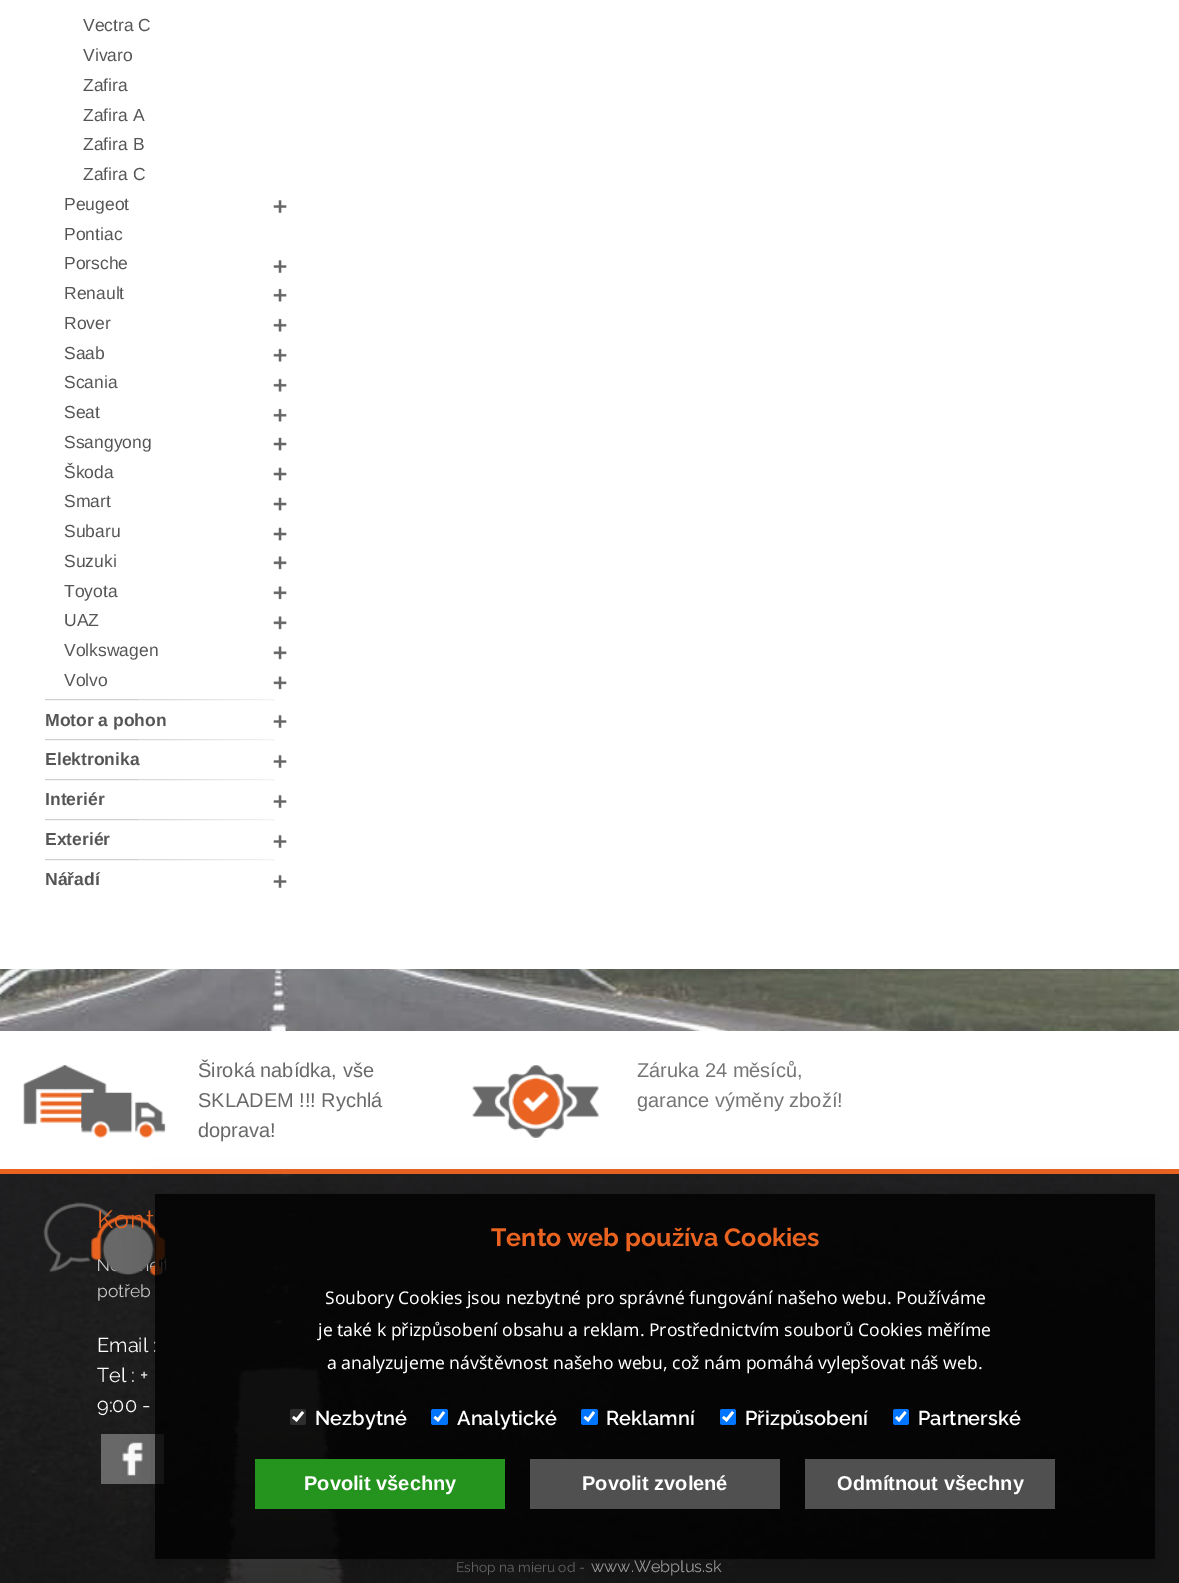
%!PS
<< /PageSize [1179 1583] /PageUsesTransparency true >> setpagedevice
/rgb { dup -16 bitshift 255 div exch dup -8 bitshift 255 and 255 div exch 255 and 255 div setrgbcolor } def
/font { [ exch dup neg 0 0 3 -1 roll 0 0 ] selectfont } def
/text { moveto show } def
/alpha { dup .setfillconstantalpha .setstrokeconstantalpha } def
/roundrect { 5 dict begin { /r /h /w /y /x } { exch def } forall
  x r add y moveto x w add y 2 copy h add r arct x w add y h add x 1 index r arct
  x y h add x y r arct x y 2 copy exch w add exch r arct closepath end } def
/shadow { 12 dict begin { /a /b /q /h /w /y /x } { exch def } forall gsave /was 0 def
  9 -2 -9 { dup b mul 4 div /e exch def 1 sub .425 mul 2.718 exch exp 1 add a .99 .min exch div /now exch def
    1 1 now sub 1 was sub div sub alpha /was now def
    w h .min e 2 mul add 0 gt { x e sub y e sub w e 2 mul add h e 2 mul add
      q e add b .6 mul add w h .min 2 div e add .min 0 .max roundrect fill } if } for grestore end } def
/picture { 5 dict begin { /h /w /y /x /name } { exch def } forall
  gsave x y translate w h scale
  w h 8 [w 0 0 h 0 0] name (r) file false 3 colorimage grestore end } def
0 .pushpdf14devicefilter
0 1583 translate 1 -1 scale
4 setmiterlimit
/s1 { /LiberationSans-Regular 17.5 font 16#555555 rgb } def
/s2 { /LiberationSans-Bold 17.5 font 16#555555 rgb } def
/s3 { /LiberationSans-Regular 20 font 16#686868 rgb } def
/s4 { /LiberationSans-Regular 20 font 16#757575 rgb } def
/s5 { /Raleway-Regular 17.5 font 16#CACACA rgb } def
/s6 { /Raleway-Regular 20 font 16#FFFFFF rgb } def
/s7 { /Raleway-Regular 13.75 font 16#686868 rgb } def
/s8 { /Raleway-Regular 16.25 font 16#A5A5A5 rgb } def
/s9 { /Raleway-Bold 25 font 16#EA6320 rgb } def
/s10 { /NotoSans-Regular 17.5 font 16#FFFFFF rgb } def
/s11 { /Raleway-SemiBold 20 font 16#FFFFFF rgb } def
/s12 { /LiberationSans-Bold 20 font 16#FFFFFF rgb } def
16#FFFFFF rgb
0 0 1179 1583 rectfill
(pic1.raw) 0 969 1179 614 picture
(pic2.raw) 45 699 230 2 picture
s1
(Vectra C) 83 31 text
(Vivaro) 83 61 text
(Zafira) 83 91 text
(Zafira A) 83 121 text
(Zafira B) 83 150 text
(Zafira C) 83 180 text
(Peugeot) 64 210 text
(pic3.raw) 273 200 14 13 picture
(Pontiac) 64 240 text
(Porsche) 64 269 text
(pic3.raw) 273 260 14 13 picture
(Renault) 64 299 text
(pic4.raw) 273 288 14 14 picture
(Rover) 64 329 text
(pic4.raw) 273 318 14 14 picture
(Saab) 64 359 text
(pic4.raw) 273 348 14 14 picture
(Scania) 64 388 text
(pic4.raw) 273 378 14 14 picture
(Seat) 64 418 text
(pic4.raw) 273 408 14 14 picture
(Ssangyong) 64 448 text
(pic5.raw) 273 437 14 14 picture
(Škoda) 64 478 text
(pic5.raw) 273 467 14 14 picture
(Smart) 64 507 text
(pic5.raw) 273 497 14 14 picture
(Subaru) 64 537 text
(pic5.raw) 273 527 14 14 picture
(Suzuki) 64 567 text
(pic6.raw) 273 556 14 14 picture
(Toyota) 64 597 text
(pic6.raw) 273 586 14 14 picture
(UAZ) 64 626 text
(pic6.raw) 273 616 14 14 picture
(Volkswagen) 64 656 text
(pic6.raw) 273 646 14 14 picture
(Volvo) 64 686 text
(pic7.raw) 273 676 14 14 picture
(pic2.raw) 45 739 230 2 picture
s2
(Motor a pohon) 45 726 text
(pic3.raw) 273 715 14 13 picture
(pic2.raw) 45 779 230 2 picture
(Elektronika) 45 765 text
(pic3.raw) 273 755 14 13 picture
(pic2.raw) 45 819 230 2 picture
(Interiér) 45 805 text
(pic3.raw) 273 795 14 13 picture
(pic2.raw) 45 859 230 2 picture
(Exteriér) 45 845 text
(pic3.raw) 273 835 14 13 picture
(Nářadí) 45 885 text
(pic3.raw) 273 875 14 13 picture
0.7 alpha
16#000000 rgb
0 1174 1179 409 rectfill
1 alpha
16#FFFFFF rgb
0 1031 1179 138 rectfill
(pic8.raw) 23 1065 143 73 picture
s3
(Široká nabídka, vše) 198 1077 text
(SKLADEM !!! Rychlá) 198 1107 text
(doprava!) 198 1137 text
(pic9.raw) 472 1065 127 73 picture
s4
(Záruka 24 měsíců,) 637 1077 text
(garance výměny zboží!) 637 1107 text
(pic10.raw) 43 1202 123 74 picture
16#EA6320 rgb
0 1169 1179 5 rectfill
/Raleway-Regular 25 font
97 1228 moveto 1 0 (Kont) ashow
s5
(potřeb) 97 1297 text
s6
(Email :) 97 1352 text
(Tel : +) 97 1382 text
(9:00 -) 97 1412 text
16#686868 rgb
101 1434 63 50 rectfill
(pic11.raw) 122 1442 21 34 picture
s7
(Eshop na mieru od -) 456 1572 text
s8
(www.Webplus.sk) 591 1572 text
gsave
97 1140 moveto 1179 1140 lineto 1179 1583 lineto 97 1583 lineto closepath 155 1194 moveto 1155 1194 lineto 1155 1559 lineto 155 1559 lineto closepath eoclip newpath
16#000000 rgb
155 1198 1000 365 0 19 0.16 shadow
grestore
0.8 alpha
16#000000 rgb
155 1194 1000 365 rectfill
1 alpha
s9
(Tento web používa Cookies) 491 1246 text
s10
(Soubory Cookies jsou nezbytné pro správné fungování našeho webu. Používáme) 325 1304 text
(je také k přizpůsobení obsahu a reklam. Prostřednictvím souborů Cookies měříme) 318 1336 text
(a analyzujeme návštěvnost našeho webu, což nám pomáhá vylepšovat náš web.) 327 1369 text
0.3 alpha
16#767676 rgb
290 1409 16 16 2.5 roundrect fill
1 alpha
16#FFFFFF rgb
2.6 setlinewidth
293 1417 moveto 296.5 1420 lineto 303 1412 lineto stroke
s11
(Nezbytné) 315 1425 text
16#0075FF rgb
431 1409 17 16 2.5 roundrect fill
16#FFFFFF rgb
434.5 1417 moveto 438 1420 lineto 444 1412 lineto stroke
(Analytické) 457 1425 text
16#0075FF rgb
581 1409 17 16 2.5 roundrect fill
16#FFFFFF rgb
584.5 1417 moveto 588 1420 lineto 594 1412 lineto stroke
(Reklamní) 606 1425 text
16#0075FF rgb
720 1409 16 16 2.5 roundrect fill
16#FFFFFF rgb
723 1417 moveto 726.5 1420 lineto 733 1412 lineto stroke
(Přizpůsobení) 745 1425 text
16#0075FF rgb
893 1409 16 16 2.5 roundrect fill
16#FFFFFF rgb
896 1417 moveto 899 1420 lineto 905.5 1412 lineto stroke
(Partnerské) 918 1425 text
16#25941E rgb
255 1459 250 50 rectfill
s12
(Povolit všechny) 304 1490 text
16#505050 rgb
530 1459 250 50 rectfill
s12
(Povolit zvolené) 582 1490 text
16#505050 rgb
805 1459 250 50 rectfill
s12
(Odmítnout všechny) 837 1490 text
.poppdf14devicefilter showpage
